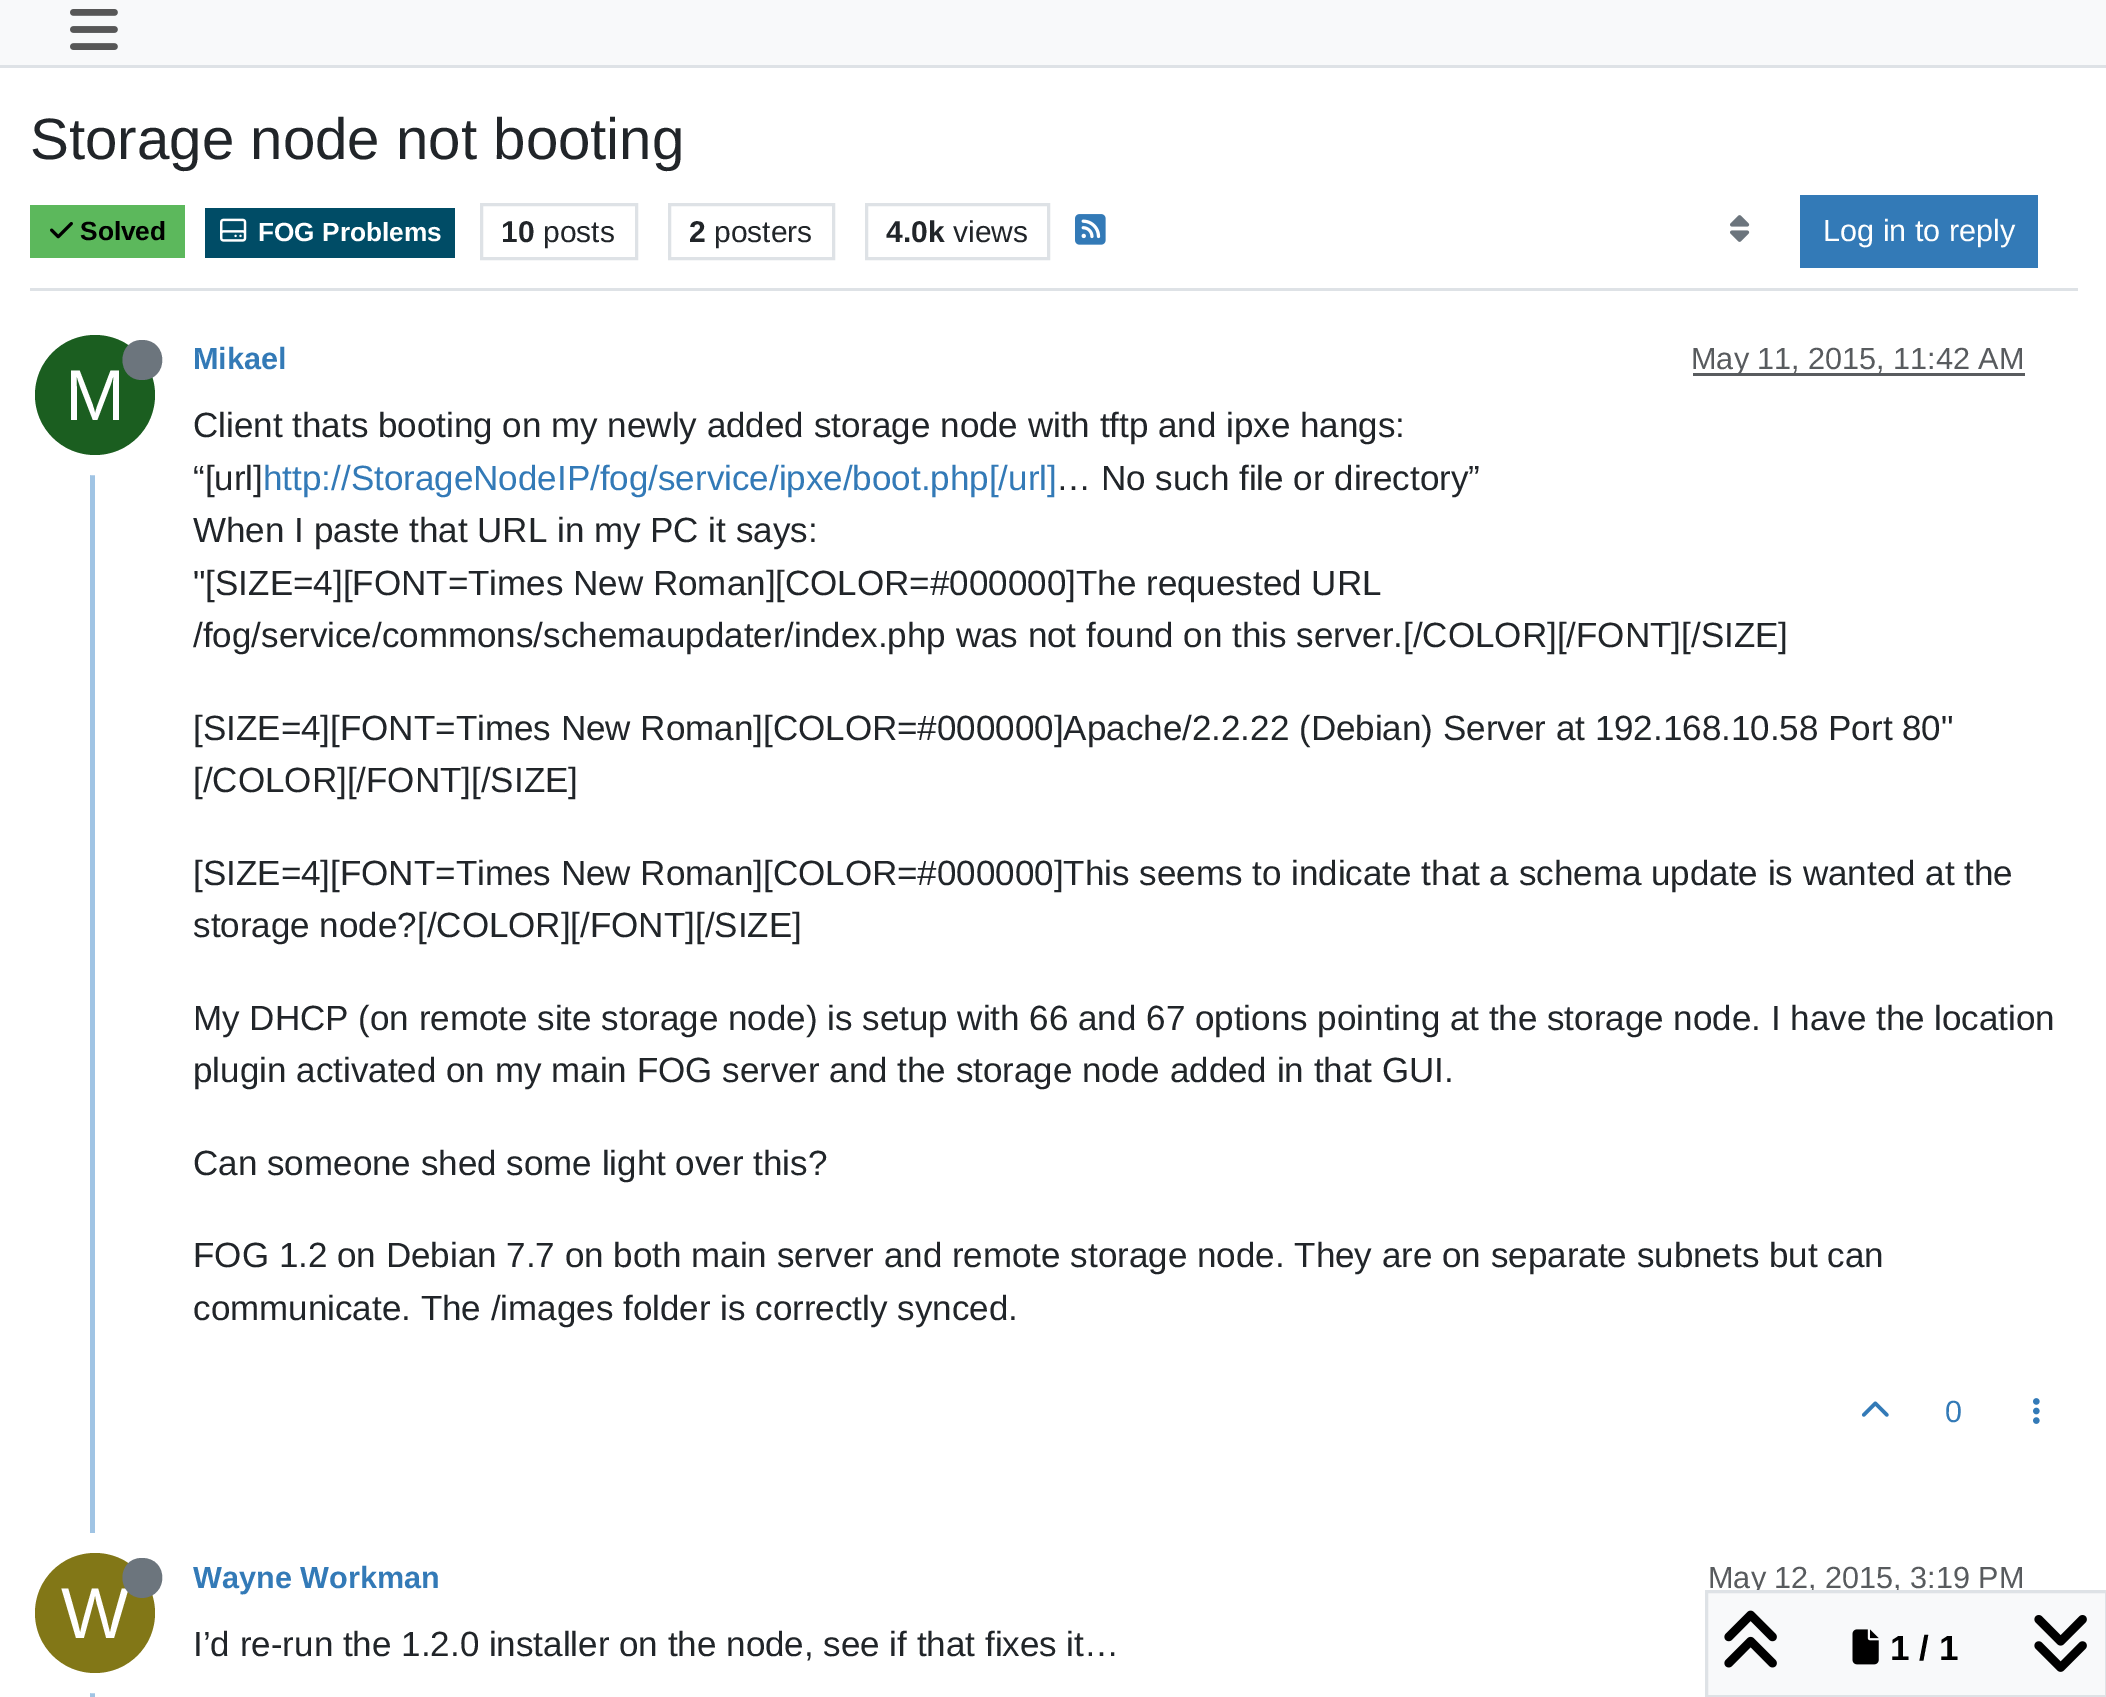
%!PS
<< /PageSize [2106 1697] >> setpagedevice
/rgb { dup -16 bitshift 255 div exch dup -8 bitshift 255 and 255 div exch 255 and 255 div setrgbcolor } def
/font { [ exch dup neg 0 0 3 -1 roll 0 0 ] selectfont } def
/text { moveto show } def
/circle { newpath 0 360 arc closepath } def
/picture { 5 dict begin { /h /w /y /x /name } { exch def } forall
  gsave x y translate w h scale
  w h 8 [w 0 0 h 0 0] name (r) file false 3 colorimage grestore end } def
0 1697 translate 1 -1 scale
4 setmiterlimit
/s1 { /LiberationSans-Regular 58.25 font 16#212529 rgb } def
/s2 { /LiberationSans-Bold 26.25 font 16#000000 rgb } def
/s3 { /LiberationSans-Bold 26.25 font 16#FFFFFF rgb } def
/s4 { /LiberationSans-Bold 30 font 16#212529 rgb } def
/s5 { /LiberationSans-Regular 30 font 16#212529 rgb } def
/s6 { /LiberationSans-Regular 30.6 font 16#FFFFFF rgb } def
/s7 { /LiberationSans-Bold 30.6 font 16#337AB7 rgb } def
/s8 { /LiberationSans-Regular 30.6 font 16#585B5E rgb } def
/s9 { /LiberationSans-Regular 72 font 16#FFFFFF rgb } def
/s10 { /LiberationSans-Regular 35 font 16#212529 rgb } def
/s11 { /LiberationSans-Regular 35 font 16#337AB7 rgb } def
/s12 { /LiberationSans-Regular 30.6 font 16#337AB7 rgb } def
/s13 { /LiberationSans-Bold 35 font 16#000000 rgb } def
16#FFFFFF rgb
0 0 2106 1697 rectfill
16#F8F9FA rgb
0 0 2106 65 rectfill
16#DEE2E6 rgb
0 65 2106 3 rectfill
(pic1.raw) 70 9 48 41 picture
30 288 2048 3 rectfill
s1
(Storage node not booting) 30 159 text
16#5CB85C rgb
30 205 155 53 rectfill
(pic2.raw) 50 222 23 17 picture
s2
(Solved) 80 240 text
16#004C66 rgb
205 208 250 50 rectfill
(pic3.raw) 220 218 27 24 picture
s3
(FOG Problems) 258 241 text
16#DEE2E6 rgb
3 setlinewidth
481.5 204.5 155 54 rectstroke
s4
(10) 501 242 text
s5
(posts) 543 242 text
16#DEE2E6 rgb
669.5 204.5 164 54 rectstroke
s4
(2) 689 242 text
s5
(posters) 714 242 text
16#DEE2E6 rgb
866.5 204.5 182 54 rectstroke
s4
(4.0k) 886 242 text
s5
(views) 953 242 text
(pic4.raw) 1075 214 31 31 picture
(pic5.raw) 1730 215 20 27 picture
16#337AB7 rgb
1800 195 238 73 rectfill
s6
(Log in to reply) 1823 241 text
16#A0C4E4 rgb
90 330 5 1367 rectfill
s7
(Mikael) 193 369 text
16#595C5F rgb
1693 373 332 3 rectfill
s8
(May 11, 2015, 11:42 AM) 1691 369 text
16#FFFFFF rgb
20 setlinewidth
95 395 70 circle stroke
16#1B5E20 rgb
95 395 60 circle fill
16#6C757D rgb
142 380 moveto 169 380 169 340 142 340 curveto 116 340 116 380 142 380 curveto closepath fill
s9
(M) 65 420 text
s10
(Client thats booting on my newly added storage node with tftp and ipxe hangs:) 193 437 text
(“[url]) 193 490 text
s11
(http://StorageNodeIP/fog/service/ipxe/boot.php[/url]) 263 490 text
s10
(… No such file or directory”) 1056 490 text
(When I paste that URL in my PC it says:) 193 542 text
("[SIZE=4][FONT=Times New Roman][COLOR=#000000]The requested URL) 193 595 text
(/fog/service/commons/schemaupdater/index.php was not found on this server.[/COLOR][/FONT][/SIZE]) 193 647 text
([SIZE=4][FONT=Times New Roman][COLOR=#000000]Apache/2.2.22 \(Debian\) Server at 192.168.10.58 Port 80") 193 740 text
([/COLOR][/FONT][/SIZE]) 193 792 text
([SIZE=4][FONT=Times New Roman][COLOR=#000000]This seems to indicate that a schema update is wanted at the) 193 885 text
(storage node?[/COLOR][/FONT][/SIZE]) 193 937 text
(My DHCP \(on remote site storage node\) is setup with 66 and 67 options pointing at the storage node. I have the location) 193 1030 text
(plugin activated on my main FOG server and the storage node added in that GUI.) 193 1082 text
(Can someone shed some light over this?) 193 1175 text
(FOG 1.2 on Debian 7.7 on both main server and remote storage node. They are on separate subnets but can) 193 1267 text
(communicate. The /images folder is correctly synced.) 193 1320 text
(pic6.raw) 1861 1401 28 16 picture
s12
(0) 1945 1422 text
(pic7.raw) 2033 1398 7 26 picture
s7
(Wayne Workman) 193 1588 text
s8
(May 12, 2015, 3:19 PM) 1708 1588 text
16#FFFFFF rgb
95 1613 70 circle stroke
16#827717 rgb
95 1613 60 circle fill
s9
(W) 61 1638 text
16#6C757D rgb
142 1598 moveto 169 1597 169 1558 142 1558 curveto 116 1558 116 1597 142 1598 curveto closepath fill
s10
(I’d re-run the 1.2.0 installer on the node, see if that fixes it…) 193 1656 text
16#F8F9FA rgb
1706.5 1591.5 moveto 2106.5 1591.5 lineto 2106.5 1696.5 lineto 1706.5 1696.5 lineto closepath gsave fill grestore
16#DEE2E6 rgb
3 setlinewidth
stroke
(pic8.raw) 1724 1610 53 58 picture
(pic9.raw) 1852 1629 27 36 picture
s13
(1 / 1) 1890 1660 text
(pic10.raw) 2034 1615 53 57 picture
showpage
